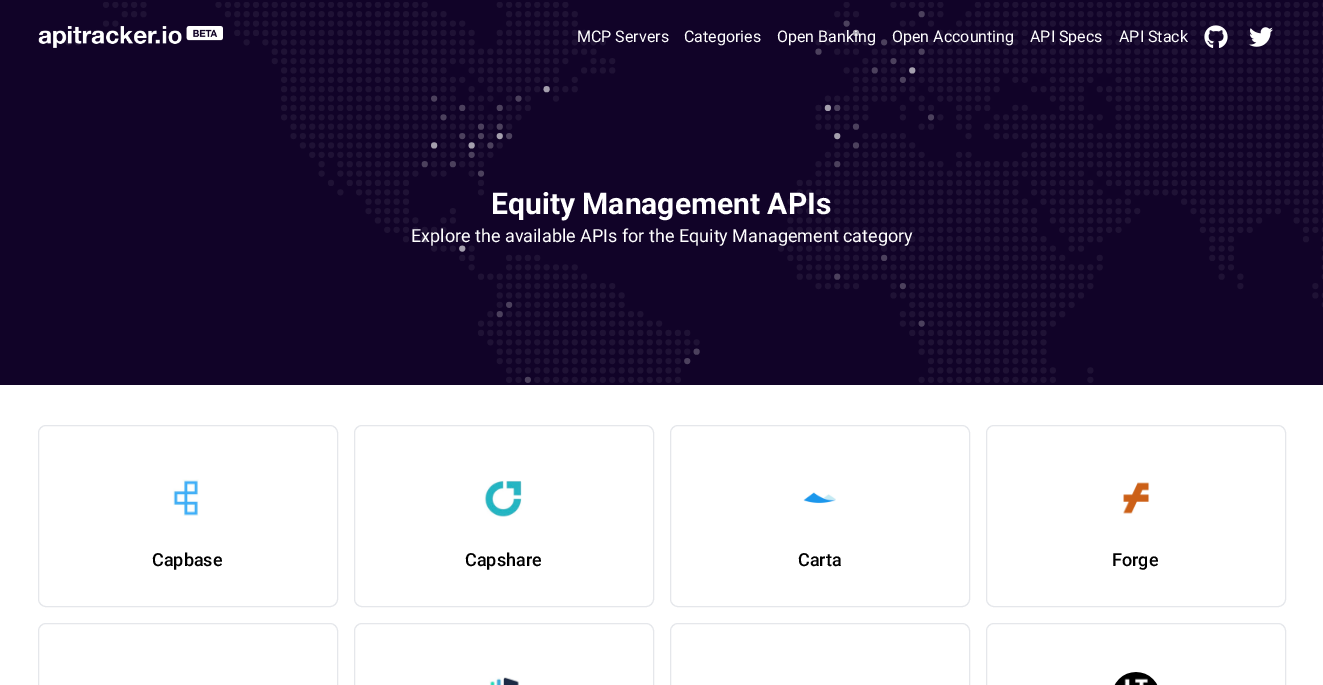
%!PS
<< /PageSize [1323 685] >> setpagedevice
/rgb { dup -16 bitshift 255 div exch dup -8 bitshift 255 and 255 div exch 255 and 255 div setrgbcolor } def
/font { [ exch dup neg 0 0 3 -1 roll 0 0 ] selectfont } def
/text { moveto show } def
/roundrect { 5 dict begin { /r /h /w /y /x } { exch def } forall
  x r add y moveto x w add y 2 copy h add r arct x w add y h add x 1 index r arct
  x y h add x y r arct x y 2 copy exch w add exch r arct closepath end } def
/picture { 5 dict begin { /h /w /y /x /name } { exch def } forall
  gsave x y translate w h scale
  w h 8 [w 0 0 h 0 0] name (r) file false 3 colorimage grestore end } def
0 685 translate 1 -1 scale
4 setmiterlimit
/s1 { /Roboto-Regular 16 font 16#FFFFFF rgb } def
/s2 { /Roboto-Bold 30 font 16#FFFFFF rgb } def
/s3 { /Roboto-Regular 18 font 16#FFFFFF rgb } def
/s4 { /Roboto-Medium 18 font 16#000000 rgb } def
16#FFFFFF rgb
0 0 1323 685 rectfill
16#110328 rgb
0 0 1323 385 rectfill
(pic1.raw) 65 2 1258 381 picture
(pic2.raw) 38 26 185 22 picture
s1
(MCP Servers) 577 42 text
(Categories) 684 42 text
(Open Banking) 777 42 text
(Open Accounting) 892 42 text
(API Specs) 1030 42 text
(API Stack) 1119 42 text
(pic3.raw) 1204 25 24 23 picture
(pic4.raw) 1249 27 24 20 picture
s2
(Equity Management APIs) 491 214 text
s3
(Explore the available APIs for the Equity Management category) 411 242 text
16#E5E7EB rgb
38.5 425.5 299 181 7.5 roundrect stroke
(pic5.raw) 173 479 26 37 picture
s4
(Capbase) 152 566 text
16#E5E7EB rgb
354.5 425.5 299 181 7.5 roundrect stroke
(pic6.raw) 484 480 38 37 picture
s4
(Capshare) 465 566 text
16#E5E7EB rgb
670.5 425.5 299 181 7.5 roundrect stroke
(pic7.raw) 803 492 33 12 picture
s4
(Carta) 798 566 text
16#E5E7EB rgb
986.5 425.5 299 181 7.5 roundrect stroke
(pic8.raw) 1123 482 27 32 picture
s4
(Forge) 1112 566 text
16#E5E7EB rgb
38.5 623.5 299 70 7.5 roundrect stroke
354.5 623.5 299 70 7.5 roundrect stroke
(pic9.raw) 489 677 30 8 picture
670.5 623.5 299 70 7.5 roundrect stroke
986.5 623.5 299 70 7.5 roundrect stroke
(pic10.raw) 1114 672 44 13 picture
showpage
